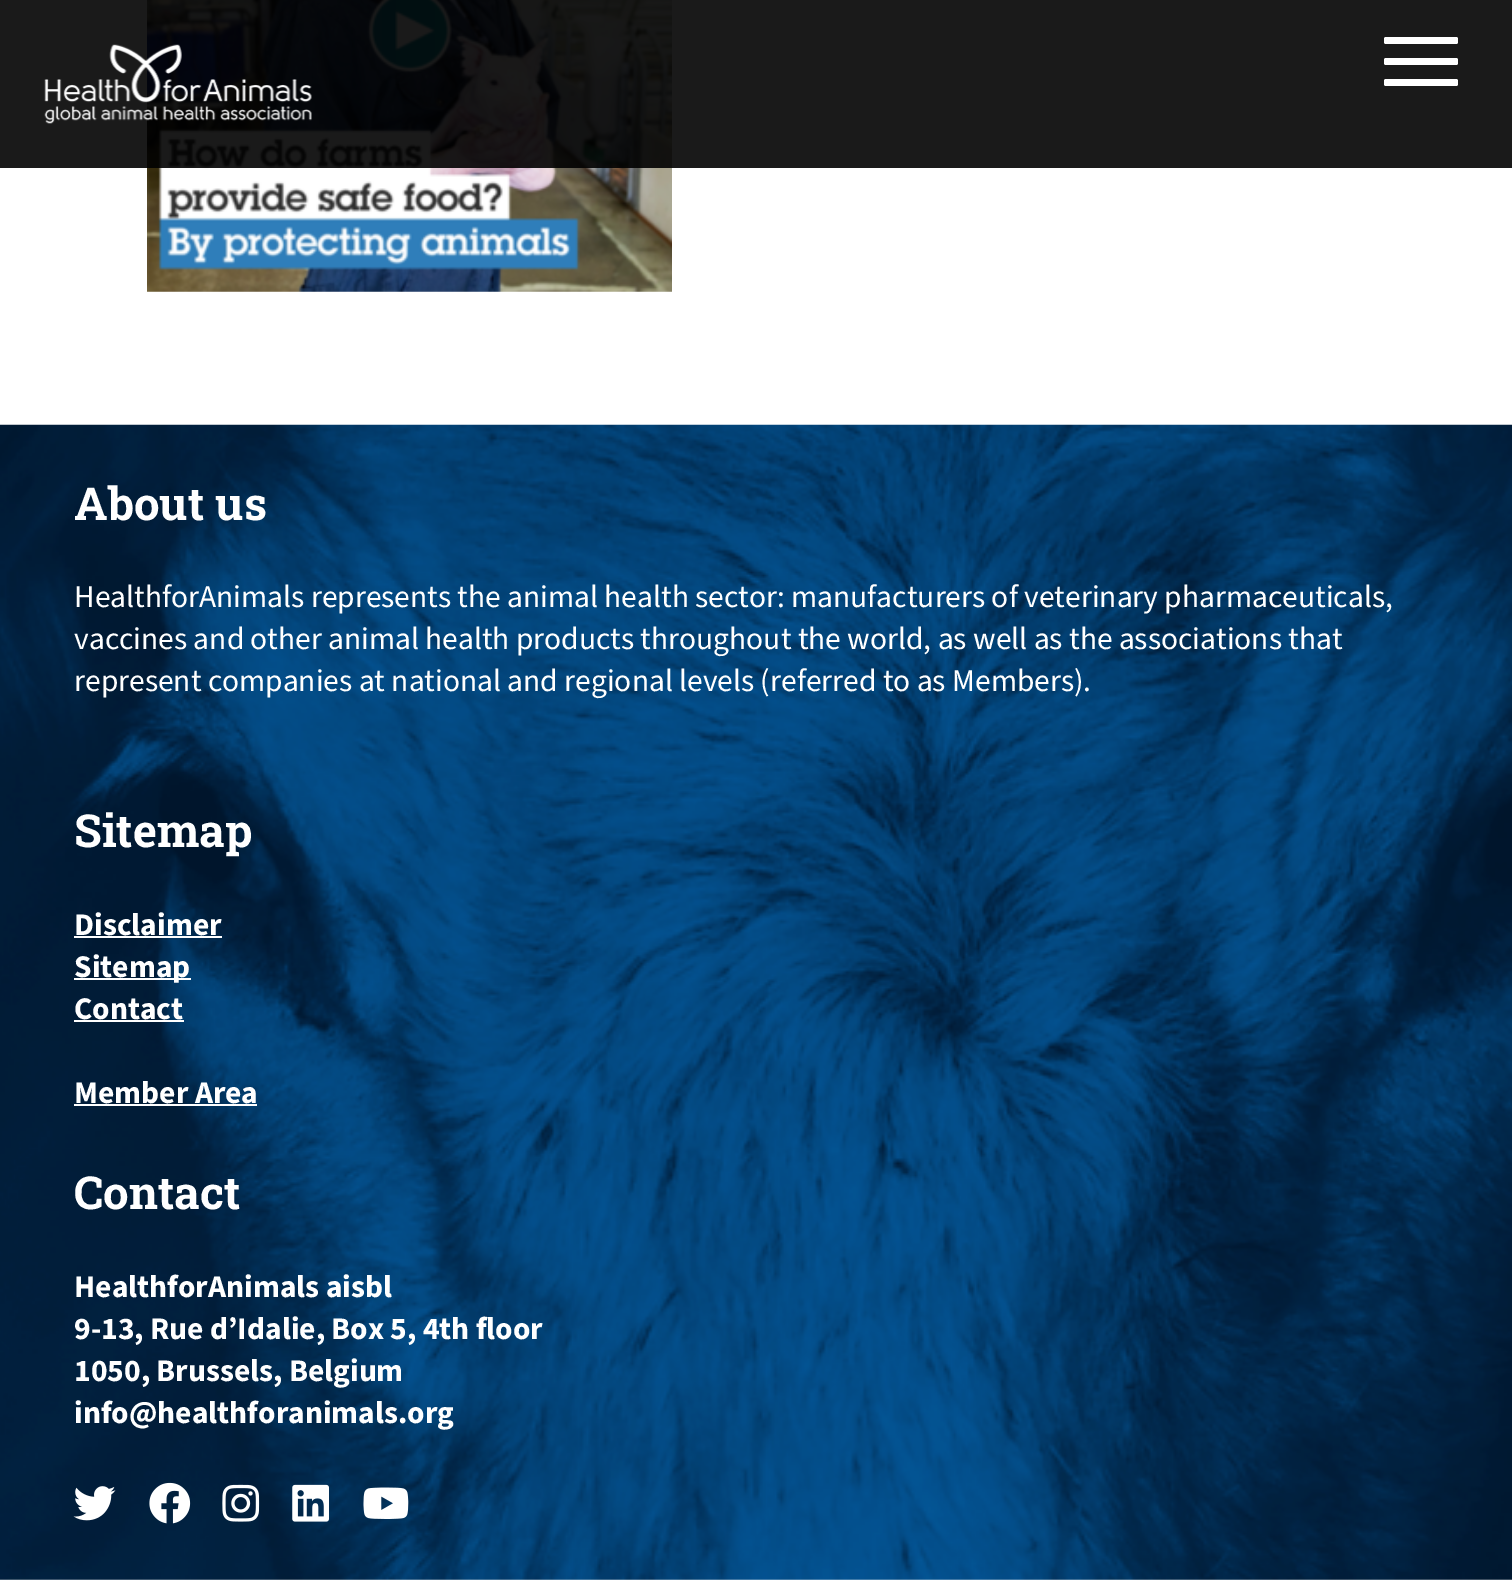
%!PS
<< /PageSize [1512 1580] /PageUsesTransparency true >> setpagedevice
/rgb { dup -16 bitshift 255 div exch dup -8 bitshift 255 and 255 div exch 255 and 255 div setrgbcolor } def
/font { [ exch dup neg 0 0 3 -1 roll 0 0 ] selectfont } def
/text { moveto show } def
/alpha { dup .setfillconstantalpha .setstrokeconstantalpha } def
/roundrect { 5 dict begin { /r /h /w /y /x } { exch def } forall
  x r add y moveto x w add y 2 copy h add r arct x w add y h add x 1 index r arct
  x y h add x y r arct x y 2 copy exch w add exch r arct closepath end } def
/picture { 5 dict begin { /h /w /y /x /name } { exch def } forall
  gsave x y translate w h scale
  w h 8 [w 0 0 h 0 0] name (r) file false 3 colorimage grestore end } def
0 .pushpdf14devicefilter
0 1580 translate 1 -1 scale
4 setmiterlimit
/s1 { /RobotoSlab-Bold 45.5 font 16#FFFFFF rgb } def
/s2 { /SourceSans3-Regular 31.5 font 16#FFFFFF rgb } def
/s3 { /SourceSans3-Bold 31.5 font 16#FFFFFF rgb } def
16#FFFFFF rgb
0 0 1512 1580 rectfill
(pic2.raw) 147 0 525 292 picture
0.9 alpha
16#010101 rgb
0 0 1512 168 rectfill
1 alpha
(pic1.raw) 44 44 268 80 picture
16#FFFFFF rgb
1384 37 74 7 2 roundrect fill
1384 58 74 7 2 roundrect fill
1384 79 74 7 2 roundrect fill
(pic3.raw) 0 424 1512 1156 picture
s1
(About us) 74 520 text
s2
(HealthforAnimals represents the animal health sector: manufacturers of veterinary pharmaceuticals,) 74 607 text
(vaccines and other animal health products throughout the world, as well as the associations that) 74 649 text
(represent companies at national and regional levels \(referred to as Members\).) 74 691 text
s1
(Sitemap) 74 847 text
s3
(Disclaimer) 74 935 text
74 936 148 2 rectfill
74 978 117 2 rectfill
(Sitemap) 74 977 text
(Contact) 74 1019 text
74 1020 110 2 rectfill
(Member Area) 74 1103 text
74 1104 183 2 rectfill
s1
(Contact) 74 1209 text
s3
(HealthforAnimals aisbl) 74 1297 text
(9-13, Rue d’Idalie, Box 5, 4th floor) 74 1339 text
(1050, Brussels, Belgium) 74 1381 text
(info@healthforanimals.org) 74 1423 text
(pic4.raw) 73 1486 43 35 picture
(pic5.raw) 149 1482 42 42 picture
(pic6.raw) 222 1484 38 38 picture
(pic7.raw) 292 1484 37 38 picture
(pic8.raw) 363 1487 46 32 picture
.poppdf14devicefilter showpage
